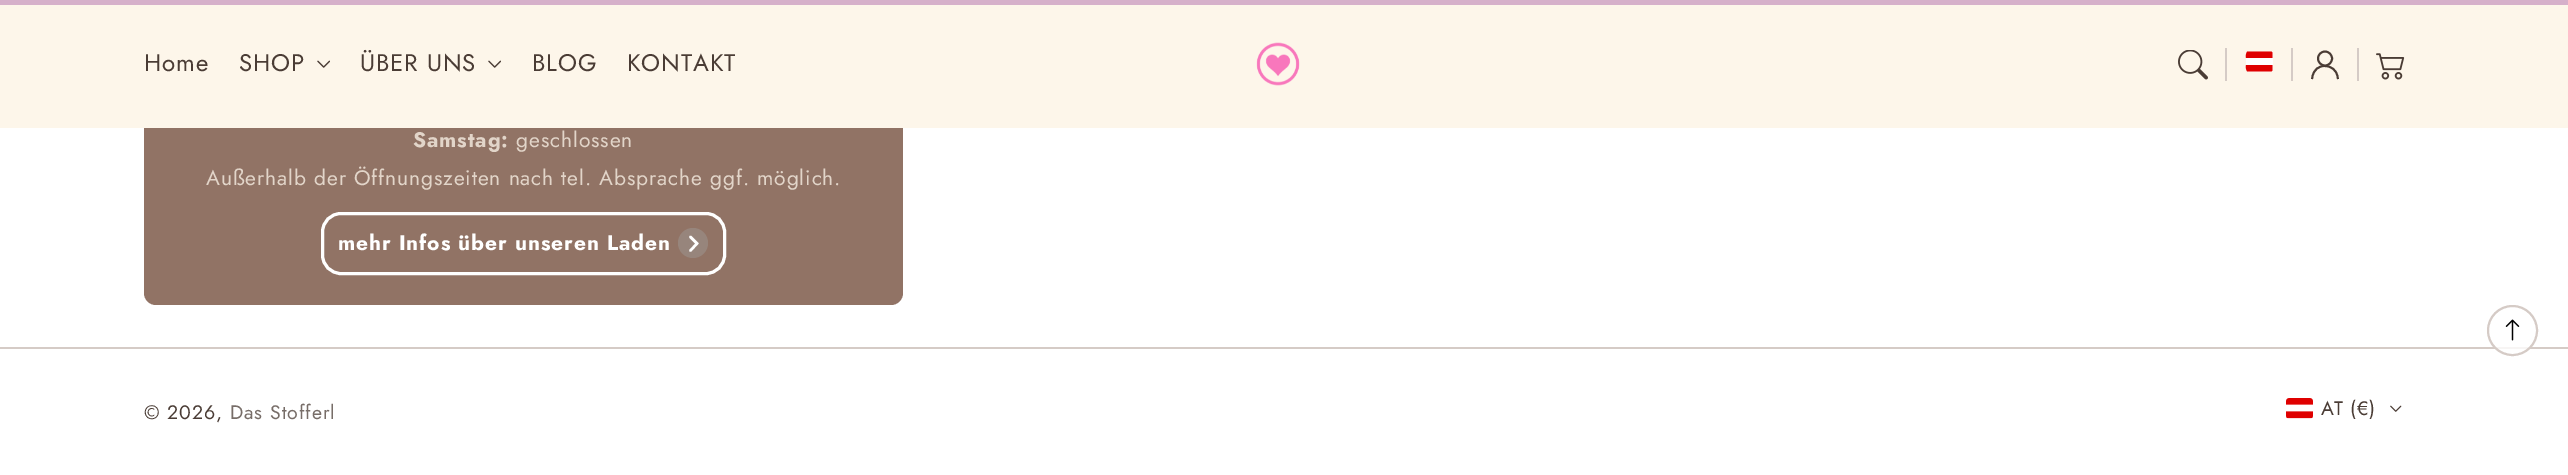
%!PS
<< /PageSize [2568 475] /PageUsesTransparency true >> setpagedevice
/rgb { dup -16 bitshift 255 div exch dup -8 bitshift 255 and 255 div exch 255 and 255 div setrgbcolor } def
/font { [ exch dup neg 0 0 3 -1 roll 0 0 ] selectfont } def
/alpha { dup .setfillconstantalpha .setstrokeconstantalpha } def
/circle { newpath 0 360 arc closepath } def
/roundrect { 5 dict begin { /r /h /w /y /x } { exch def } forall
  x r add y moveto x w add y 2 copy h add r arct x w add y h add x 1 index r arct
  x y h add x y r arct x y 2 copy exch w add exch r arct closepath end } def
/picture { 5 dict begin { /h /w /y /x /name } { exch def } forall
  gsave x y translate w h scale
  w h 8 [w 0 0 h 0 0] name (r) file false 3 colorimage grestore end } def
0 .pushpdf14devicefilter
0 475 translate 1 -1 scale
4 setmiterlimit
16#FFFFFF rgb
0 0 2568 475 rectfill
16#917365 rgb
144 -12 759 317 12 roundrect fill
16#D6B0CA rgb
0 0 2568 5 rectfill
16#FDF6EA rgb
0 5 2568 123 rectfill
/Jost-Regular 24 font
16#4A3C35 rgb
144 71 moveto 0.9 0 (Home) ashow
239 71 moveto 0.9 0 (SHOP) ashow
(pic1.raw) 317 60 13 8 picture
360 71 moveto 0.9 0 (ÜBER UNS) ashow
(pic1.raw) 488 60 13 8 picture
532 71 moveto 0.9 0 (BLOG) ashow
627 71 moveto 0.9 0 (KONTAKT) ashow
(pic2.raw) 1256 42 44 44 picture
(pic3.raw) 2178 50 30 30 picture
16#D5CBC6 rgb
2225 48 2 33 rectfill
gsave
2246 51 27 21 3 roundrect clip newpath
16#FFFFFF rgb
2246 52 moveto 2273 52 lineto 2273 69 lineto 2273 70.5 2271.5 72 2270 72 curveto 2249 72 lineto 2247.5 72 2246 70.5 2246 69 curveto closepath fill
grestore
16#DF0000 rgb
2272.5 58 moveto 2246 58 lineto 2246 56 2245.5 53 2247.5 51.5 curveto 2271.5 51.5 lineto 2272.5 52.5 lineto closepath 2247.5 71.5 moveto 2245.5 70 2246 67 2246 65 curveto 2272.5 65 lineto 2272.5 70.5 lineto 2271.5 71.5 lineto closepath eofill
16#D5CBC6 rgb
2291 48 2 33 rectfill
16#4A3C35 rgb
1.9 setlinewidth
2325 58.5 7 circle stroke
2312 79 moveto 2312.5 76.5 lineto 2313.5 70 2319 65.5 2325 66 curveto 2331 66 2336.5 70 2337.5 76.5 curveto 2338 79 lineto stroke
16#D5CBC6 rgb
2357 48 2 33 rectfill
(pic4.raw) 2376 53 29 27 picture
/Jost-Bold 21 font
16#E2D5C9 rgb
413 147 moveto 0.9 0 (Samstag:) ashow
/Jost-Regular 21 font
516 147 moveto 0.9 0 (geschlossen) ashow
206 185 moveto 0.9 0 (Außerhalb der Öffnungszeiten nach tel. Absprache ggf. möglich.) ashow
16#FFFFFF rgb
3 setlinewidth
322.5 213.5 402 60 18.5 roundrect stroke
/Jost-Bold 21 font
338 250 moveto 0.9 0 (mehr Infos über unseren Laden) ashow
16#97857C rgb
693 243 15 circle fill
16#FFFFFF rgb
2.5 setlinewidth
1 setlinecap
690.5 250.5 moveto 697 243.5 lineto 690.5 237 lineto stroke
16#D5CBC6 rgb
0 347 2568 2 rectfill
/Jost-Regular 19.5 font
16#4A3C35 rgb
144 419 moveto 0.9 0 (© 2026,) ashow
16#776D68 rgb
230 419 moveto 0.9 0 (Das Stofferl) ashow
(pic5.raw) 2286 398 27 21 picture
16#4A3C35 rgb
2321 415 moveto 0.5 0 (AT \(€\)) ashow
(pic6.raw) 2390 405 12 7 picture
0.8 alpha
16#FFFFFF rgb
2512.5 330.5 24.5 circle fill
1 alpha
16#D5CBC6 rgb
2 setlinewidth
0 setlinecap
2512.5 330.5 24.5 circle stroke
(pic7.raw) 2505 319 15 22 picture
.poppdf14devicefilter showpage
